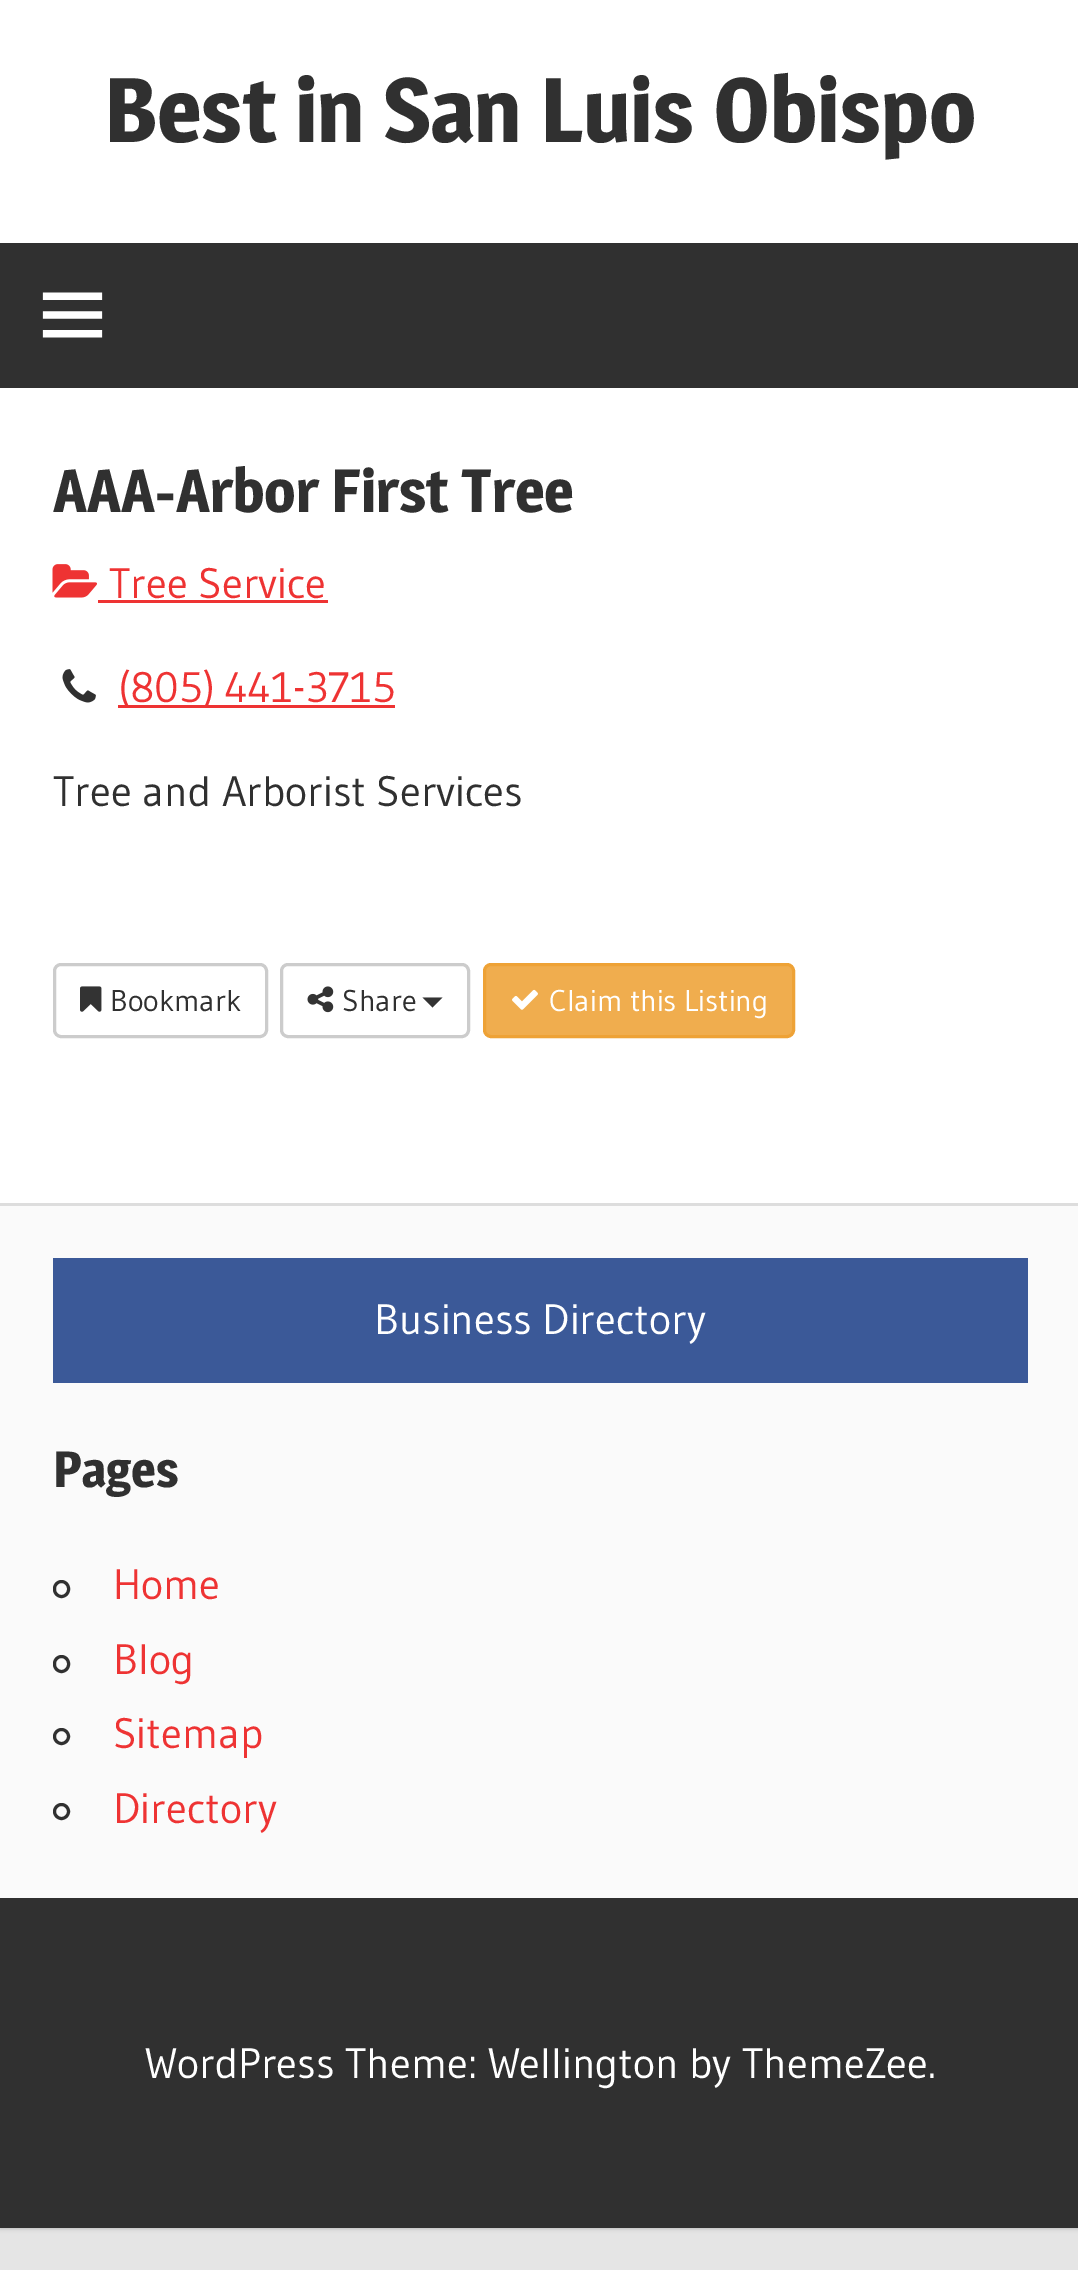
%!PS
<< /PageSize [1078 2270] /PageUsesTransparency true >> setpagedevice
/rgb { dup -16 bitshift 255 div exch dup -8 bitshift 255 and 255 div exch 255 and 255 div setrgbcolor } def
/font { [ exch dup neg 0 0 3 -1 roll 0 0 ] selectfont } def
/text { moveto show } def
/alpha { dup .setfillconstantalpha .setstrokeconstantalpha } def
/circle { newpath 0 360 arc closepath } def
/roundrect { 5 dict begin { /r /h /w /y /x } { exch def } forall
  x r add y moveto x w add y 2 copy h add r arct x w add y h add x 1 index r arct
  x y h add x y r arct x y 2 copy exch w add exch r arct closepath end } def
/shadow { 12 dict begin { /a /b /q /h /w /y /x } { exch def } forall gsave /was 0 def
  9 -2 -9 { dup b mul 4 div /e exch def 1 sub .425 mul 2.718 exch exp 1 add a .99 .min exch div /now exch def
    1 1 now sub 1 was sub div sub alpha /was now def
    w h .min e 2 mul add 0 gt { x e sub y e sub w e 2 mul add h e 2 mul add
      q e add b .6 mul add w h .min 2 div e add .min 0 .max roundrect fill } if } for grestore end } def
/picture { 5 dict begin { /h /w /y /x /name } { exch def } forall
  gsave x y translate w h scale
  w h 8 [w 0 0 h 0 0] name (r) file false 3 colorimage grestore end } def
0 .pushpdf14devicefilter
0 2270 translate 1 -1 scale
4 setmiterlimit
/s1 { /Magra-Bold 90 font 16#303030 rgb } def
/s2 { /Magra-Bold 60 font 16#303030 rgb } def
/s3 { /Gudea-Regular 42.5 font 16#EE3333 rgb } def
/s4 { /Gudea-Regular 42.5 font 16#303030 rgb } def
/s5 { /Gudea-Regular 30 font 16#303030 rgb } def
/s6 { /Gudea-Regular 30 font 16#FFFFFF rgb } def
/s7 { /Gudea-Regular 42.5 font 16#FFFFFF rgb } def
/s8 { /Magra-Bold 50 font 16#303030 rgb } def
16#E5E5E5 rgb
0 0 1078 2270 rectfill
16#AAAAAA rgb
0 0 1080 2228 0 2.5 1 shadow
16#FFFFFF rgb
0 0 1078 1203 rectfill
s1
(Best in San Luis Obispo) 104 142 text
0 243 1078 145 rectfill
(pic1.raw) 42 292 61 46 picture
s2
(AAA-Arbor First Tree) 53 512 text
(pic2.raw) 52 564 45 34 picture
s3
(Tree Service) 109 598 text
98 600 230 3 rectfill
(pic3.raw) 62 669 34 34 picture
118 705 277 3 rectfill
(\(805\) 441-3715) 118 702 text
s4
(Tree and Arborist Services) 53 806 text
16#CCCCCC rgb
3 setlinewidth
54.5 964.5 212 72 6.5 roundrect stroke
(pic4.raw) 80 986 22 26 picture
s5
(Bookmark) 110 1011 text
16#CCCCCC rgb
281.5 964.5 187 72 6.5 roundrect stroke
(pic5.raw) 307 986 27 27 picture
s5
(Share) 342 1011 text
16#333333 rgb
422.5 997.5 moveto 442.5 997.5 lineto 432.5 1007.5 lineto closepath fill
16#F0AD4E rgb
484.5 964.5 309 72 6.5 roundrect gsave fill grestore
16#EEA236 rgb
stroke
(pic6.raw) 512 989 26 21 picture
s6
(Claim this Listing) 549 1011 text
16#FAFAFA rgb
0 1206 1078 692 rectfill
16#DDDDDD rgb
0 1203 1078 3 rectfill
16#3B5998 rgb
53 1258 975 125 rectfill
s7
(Business Directory) 374 1334 text
s8
(Pages) 53 1487 text
54.5 1581.5 14 15 7 roundrect stroke
s3
(Home) 113 1599 text
16#303030 rgb
54.5 1656.5 14 15 7 roundrect stroke
s3
(Blog) 113 1674 text
16#303030 rgb
61.5 1736.5 7 circle stroke
s3
(Sitemap) 113 1748 text
16#303030 rgb
61.5 1811.5 7 circle stroke
s3
(Directory) 113 1823 text
16#303030 rgb
0 1898 1078 330 rectfill
s7
(WordPress Theme: Wellington by ThemeZee.) 145 2078 text
.poppdf14devicefilter showpage
